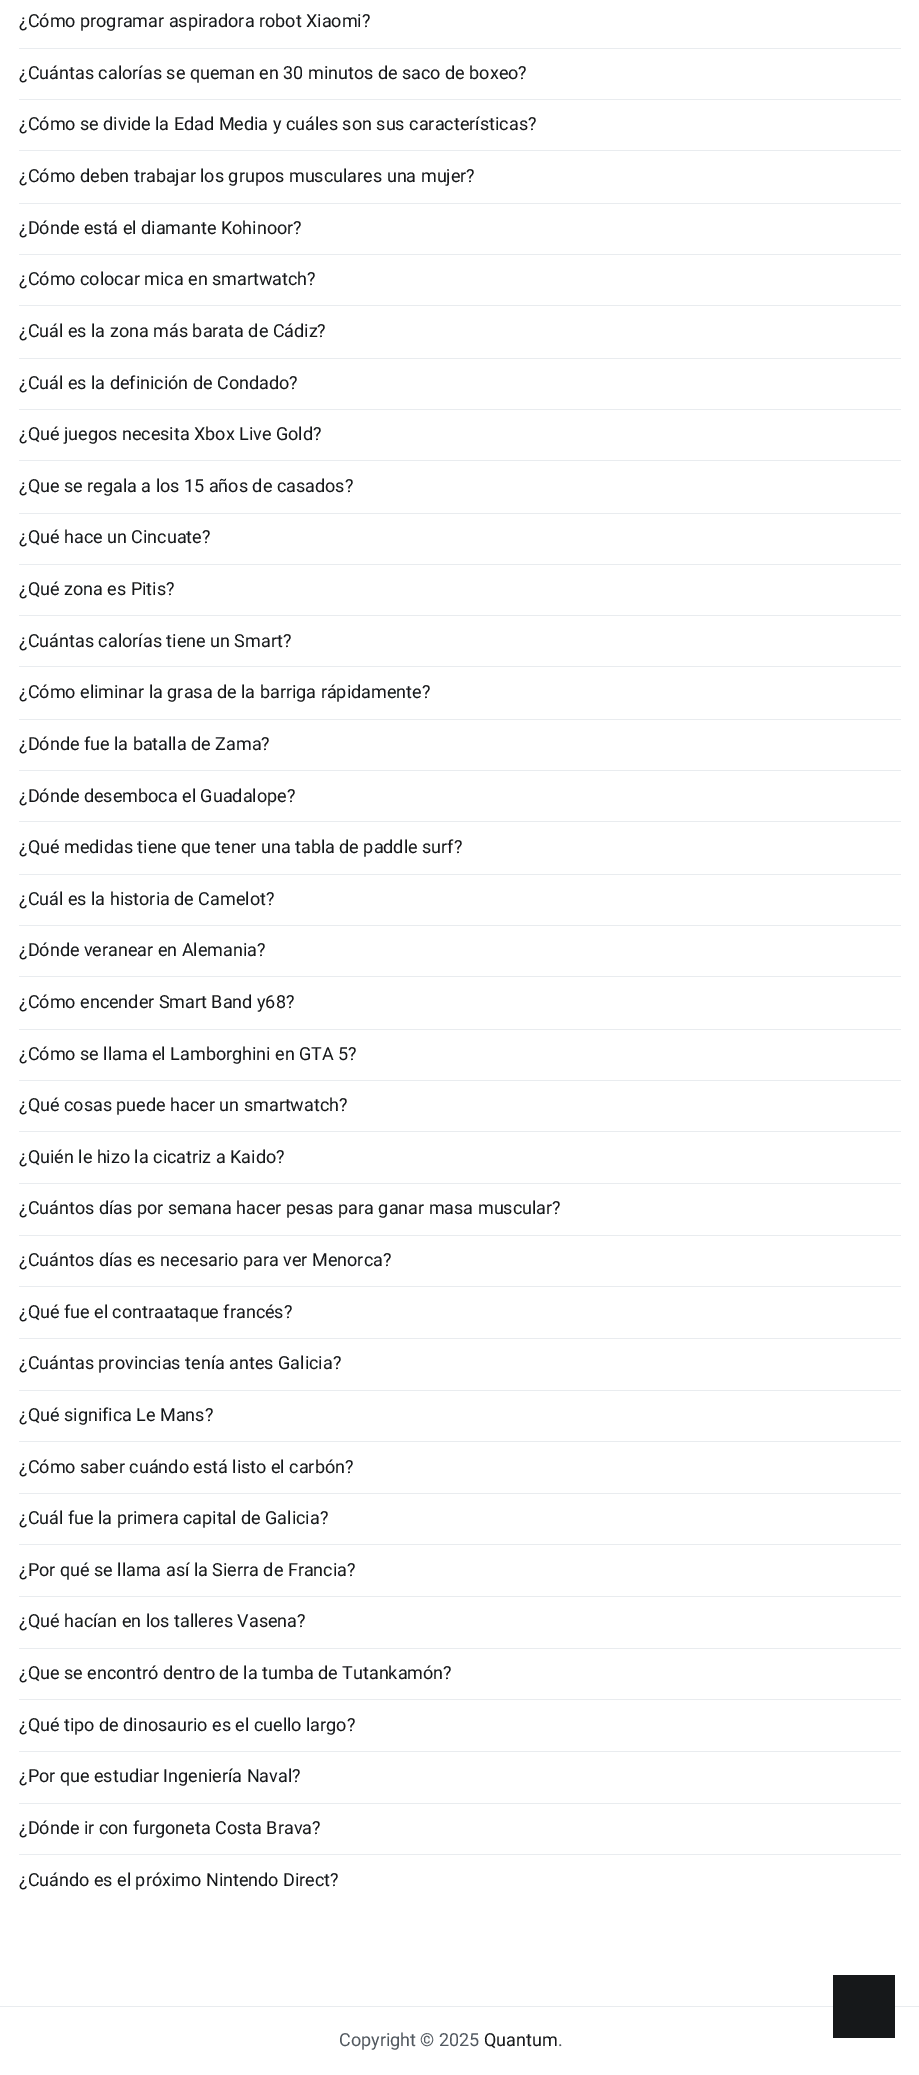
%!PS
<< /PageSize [919 2075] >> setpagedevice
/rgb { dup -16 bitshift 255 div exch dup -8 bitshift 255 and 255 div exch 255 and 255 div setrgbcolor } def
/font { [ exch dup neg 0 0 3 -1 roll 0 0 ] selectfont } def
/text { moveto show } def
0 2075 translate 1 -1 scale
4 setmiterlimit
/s1 { /Roboto-Regular 18 font 16#16181A rgb } def
/s2 { /Roboto-Regular 18 font 16#51585F rgb } def
16#FFFFFF rgb
0 0 919 2075 rectfill
16#E9ECEF rgb
19 48 882 1 rectfill
s1
(¿Cómo programar aspiradora robot Xiaomi?) 19 27 text
16#E9ECEF rgb
19 99 882 1 rectfill
s1
(¿Cuántas calorías se queman en 30 minutos de saco de boxeo?) 19 79 text
16#E9ECEF rgb
19 150 882 1 rectfill
s1
(¿Cómo se divide la Edad Media y cuáles son sus características?) 19 130 text
16#E9ECEF rgb
19 203 882 1 rectfill
s1
(¿Cómo deben trabajar los grupos musculares una mujer?) 19 182 text
16#E9ECEF rgb
19 254 882 1 rectfill
s1
(¿Dónde está el diamante Kohinoor?) 19 234 text
16#E9ECEF rgb
19 305 882 1 rectfill
s1
(¿Cómo colocar mica en smartwatch?) 19 285 text
16#E9ECEF rgb
19 358 882 1 rectfill
s1
(¿Cuál es la zona más barata de Cádiz?) 19 337 text
16#E9ECEF rgb
19 409 882 1 rectfill
s1
(¿Cuál es la definición de Condado?) 19 389 text
16#E9ECEF rgb
19 460 882 1 rectfill
s1
(¿Qué juegos necesita Xbox Live Gold?) 19 440 text
16#E9ECEF rgb
19 513 882 1 rectfill
s1
(¿Que se regala a los 15 años de casados?) 19 492 text
16#E9ECEF rgb
19 564 882 1 rectfill
s1
(¿Qué hace un Cincuate?) 19 543 text
16#E9ECEF rgb
19 615 882 1 rectfill
s1
(¿Qué zona es Pitis?) 19 595 text
16#E9ECEF rgb
19 666 882 1 rectfill
s1
(¿Cuántas calorías tiene un Smart?) 19 647 text
16#E9ECEF rgb
19 719 882 1 rectfill
s1
(¿Cómo eliminar la grasa de la barriga rápidamente?) 19 698 text
16#E9ECEF rgb
19 770 882 1 rectfill
s1
(¿Dónde fue la batalla de Zama?) 19 750 text
16#E9ECEF rgb
19 821 882 1 rectfill
s1
(¿Dónde desemboca el Guadalope?) 19 802 text
16#E9ECEF rgb
19 874 882 1 rectfill
s1
(¿Qué medidas tiene que tener una tabla de paddle surf?) 19 853 text
16#E9ECEF rgb
19 925 882 1 rectfill
s1
(¿Cuál es la historia de Camelot?) 19 905 text
16#E9ECEF rgb
19 976 882 1 rectfill
s1
(¿Dónde veranear en Alemania?) 19 956 text
16#E9ECEF rgb
19 1029 882 1 rectfill
s1
(¿Cómo encender Smart Band y68?) 19 1008 text
16#E9ECEF rgb
19 1080 882 1 rectfill
s1
(¿Cómo se llama el Lamborghini en GTA 5?) 19 1060 text
16#E9ECEF rgb
19 1131 882 1 rectfill
s1
(¿Qué cosas puede hacer un smartwatch?) 19 1111 text
16#E9ECEF rgb
19 1183 882 1 rectfill
s1
(¿Quién le hizo la cicatriz a Kaido?) 19 1163 text
16#E9ECEF rgb
19 1235 882 1 rectfill
s1
(¿Cuántos días por semana hacer pesas para ganar masa muscular?) 19 1214 text
16#E9ECEF rgb
19 1286 882 1 rectfill
s1
(¿Cuántos días es necesario para ver Menorca?) 19 1266 text
16#E9ECEF rgb
19 1338 882 1 rectfill
s1
(¿Qué fue el contraataque francés?) 19 1318 text
16#E9ECEF rgb
19 1390 882 1 rectfill
s1
(¿Cuántas provincias tenía antes Galicia?) 19 1369 text
16#E9ECEF rgb
19 1441 882 1 rectfill
s1
(¿Qué significa Le Mans?) 19 1421 text
16#E9ECEF rgb
19 1493 882 1 rectfill
s1
(¿Cómo saber cuándo está listo el carbón?) 19 1473 text
16#E9ECEF rgb
19 1544 882 1 rectfill
s1
(¿Cuál fue la primera capital de Galicia?) 19 1524 text
16#E9ECEF rgb
19 1596 882 1 rectfill
s1
(¿Por qué se llama así la Sierra de Francia?) 19 1576 text
16#E9ECEF rgb
19 1648 882 1 rectfill
s1
(¿Qué hacían en los talleres Vasena?) 19 1627 text
16#E9ECEF rgb
19 1699 882 1 rectfill
s1
(¿Que se encontró dentro de la tumba de Tutankamón?) 19 1679 text
16#E9ECEF rgb
19 1751 882 1 rectfill
s1
(¿Qué tipo de dinosaurio es el cuello largo?) 19 1731 text
16#E9ECEF rgb
19 1803 882 1 rectfill
s1
(¿Por que estudiar Ingeniería Naval?) 19 1782 text
16#E9ECEF rgb
19 1854 882 1 rectfill
s1
(¿Dónde ir con furgoneta Costa Brava?) 19 1834 text
(¿Cuándo es el próximo Nintendo Direct?) 19 1886 text
16#E9ECEF rgb
0 2006 919 1 rectfill
s2
(Copyright © 2025) 339 2046 text
s1
(Quantum) 484 2046 text
s2
(.) 558 2046 text
16#16181A rgb
833 1975 62 63 rectfill
showpage
